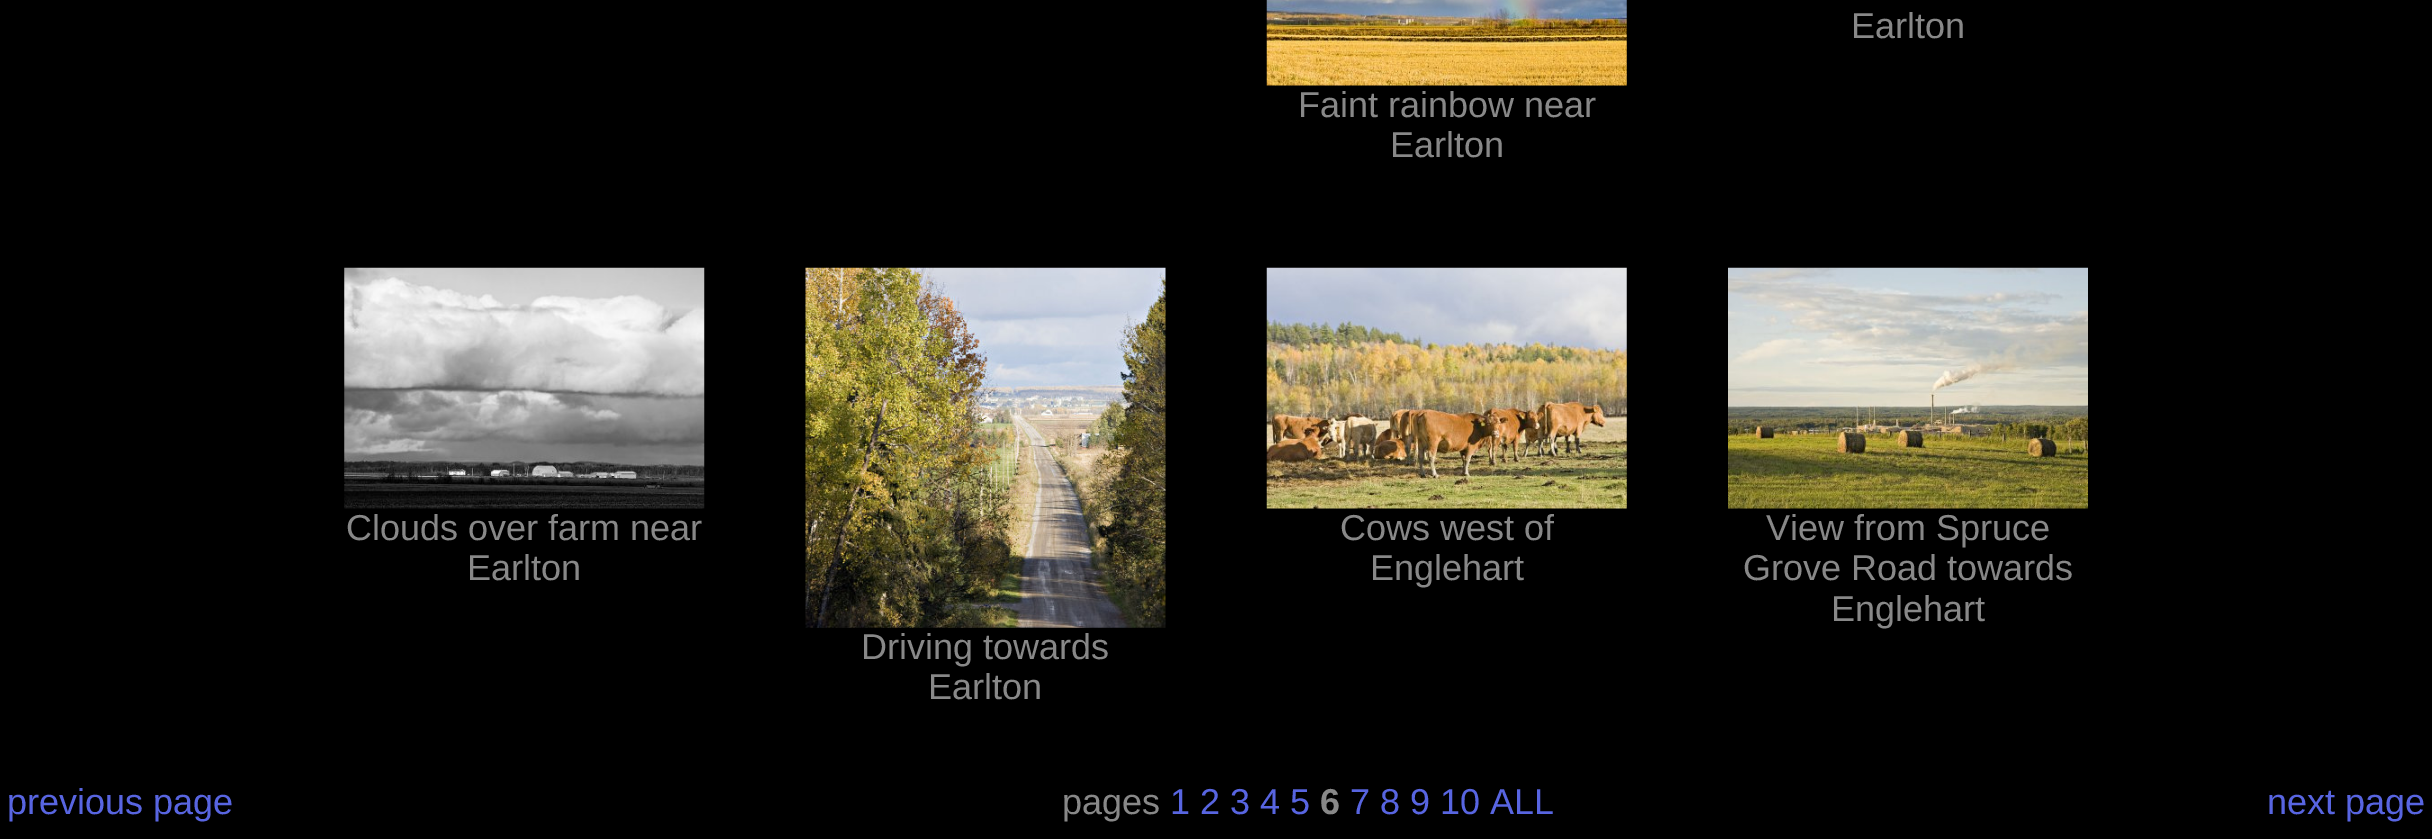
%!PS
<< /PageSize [2432 839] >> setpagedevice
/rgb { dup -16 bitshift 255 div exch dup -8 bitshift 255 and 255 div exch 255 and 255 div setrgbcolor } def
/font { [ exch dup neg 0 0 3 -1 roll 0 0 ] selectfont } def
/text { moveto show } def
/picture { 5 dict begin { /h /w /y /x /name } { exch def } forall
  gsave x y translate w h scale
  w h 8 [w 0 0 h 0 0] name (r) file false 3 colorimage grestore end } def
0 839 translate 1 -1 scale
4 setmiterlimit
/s1 { /LiberationSans-Regular 36 font 16#888888 rgb } def
/s2 { /LiberationSans-Regular 36 font 16#5865E1 rgb } def
/s3 { /LiberationSans-Bold 36 font 16#888888 rgb } def
16#000000 rgb
0 0 2432 839 rectfill
s1
(Earlton) 1851 38 text
(pic1.raw) 1266 0 361 86 picture
(Faint rainbow near) 1298 117 text
(Earlton) 1390 157 text
(pic2.raw) 344 267 361 242 picture
(Clouds over farm near) 346 540 text
(Earlton) 467 580 text
(pic3.raw) 1266 267 361 242 picture
(Cows west of) 1340 540 text
(Englehart) 1370 580 text
(pic4.raw) 1728 267 360 242 picture
(View from Spruce) 1766 540 text
(Grove Road towards) 1743 580 text
(Englehart) 1831 621 text
(pic5.raw) 805 267 361 361 picture
(Driving towards) 861 659 text
(Earlton) 928 699 text
s2
(previous page) 7 814 text
s1
(pages) 1062 814 text
s2
(1 2 3 4 5) 1170 814 text
s3
(6) 1320 814 text
s2
(7 8 9 10 ALL) 1350 814 text
(next page) 2267 814 text
showpage
